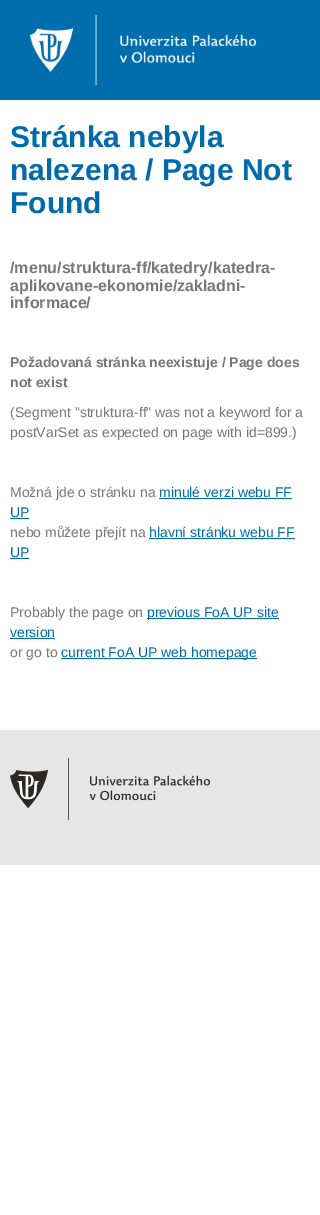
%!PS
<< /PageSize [320 1215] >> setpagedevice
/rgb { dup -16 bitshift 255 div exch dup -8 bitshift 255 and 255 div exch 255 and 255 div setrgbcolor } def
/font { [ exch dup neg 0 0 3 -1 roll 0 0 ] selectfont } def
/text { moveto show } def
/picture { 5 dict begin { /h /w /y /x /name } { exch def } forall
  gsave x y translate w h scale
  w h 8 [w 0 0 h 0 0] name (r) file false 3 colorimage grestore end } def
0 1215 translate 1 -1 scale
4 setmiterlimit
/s1 { /LiberationSans-Bold 30 font 16#006BAB rgb } def
/s2 { /LiberationSans-Bold 16 font 16#777777 rgb } def
/s3 { /LiberationSans-Bold 14 font 16#777777 rgb } def
/s4 { /LiberationSans-Regular 14 font 16#777777 rgb } def
/s5 { /LiberationSans-Regular 14 font 16#006BAB rgb } def
16#FFFFFF rgb
0 0 320 1215 rectfill
16#006EAD rgb
0 0 320 100 rectfill
(pic1.raw) 30 15 226 70 picture
s1
(Stránka nebyla) 10 147 text
(nalezena / Page Not) 10 180 text
(Found) 10 213 text
s2
(/menu/struktura-ff/katedry/katedra-) 10 273 text
(aplikovane-ekonomie/zakladni-) 10 291 text
(informace/) 10 308 text
s3
(Požadovaná stránka neexistuje / Page does) 10 367 text
(not exist) 10 387 text
s4
(\(Segment "struktura-ff" was not a keyword for a) 10 417 text
(postVarSet as expected on page with id=899.\)) 10 437 text
(Možná jde o stránku na) 10 497 text
s5
(minulé verzi webu FF) 159 497 text
159 498 133 1 rectfill
(UP) 10 517 text
10 518 19 1 rectfill
s4
(nebo můžete přejít na) 10 537 text
s5
(hlavní stránku webu FF) 149 537 text
149 538 146 1 rectfill
(UP) 10 557 text
10 558 19 1 rectfill
s4
(Probably the page on) 10 617 text
16#006BAB rgb
147 618 132 1 rectfill
(previous FoA UP site) 147 617 text
(version) 10 637 text
10 638 45 1 rectfill
s4
(or go to) 10 657 text
16#006BAB rgb
61 658 196 1 rectfill
(current FoA UP web homepage) 61 657 text
16#E6E6E6 rgb
0 730 320 135 rectfill
(pic2.raw) 10 758 200 62 picture
showpage
